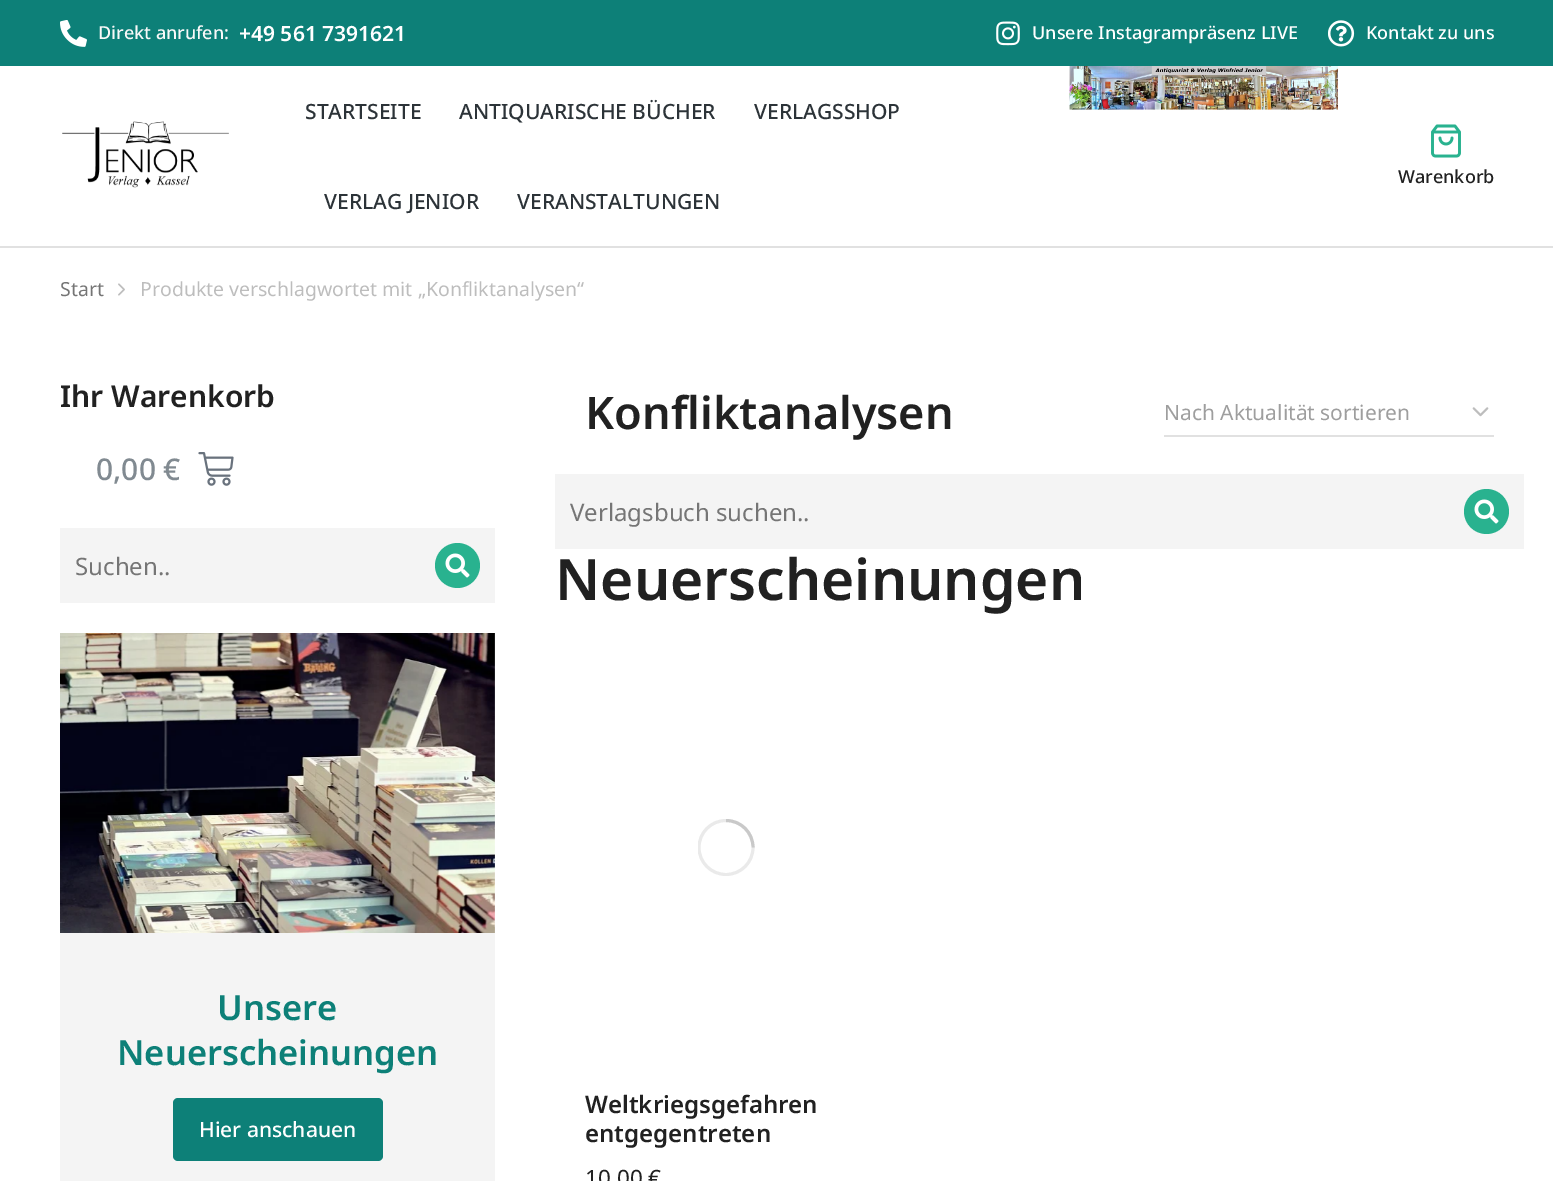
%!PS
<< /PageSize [1553 1181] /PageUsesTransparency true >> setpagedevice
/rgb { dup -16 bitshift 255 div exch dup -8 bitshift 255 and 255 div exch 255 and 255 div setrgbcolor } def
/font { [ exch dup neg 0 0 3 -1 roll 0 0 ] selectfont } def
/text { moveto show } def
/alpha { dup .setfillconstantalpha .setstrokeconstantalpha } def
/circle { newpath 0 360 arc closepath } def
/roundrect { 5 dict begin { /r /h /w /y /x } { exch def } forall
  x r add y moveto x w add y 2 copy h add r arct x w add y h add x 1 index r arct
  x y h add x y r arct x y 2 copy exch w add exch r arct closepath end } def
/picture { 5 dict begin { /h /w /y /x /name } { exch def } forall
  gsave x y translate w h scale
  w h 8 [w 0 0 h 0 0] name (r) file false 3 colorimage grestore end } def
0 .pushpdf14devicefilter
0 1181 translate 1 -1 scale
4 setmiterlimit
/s1 { /NotoSans-Medium 18 font 16#F8F8F8 rgb } def
/s2 { /NotoSans-SemiBold 21 font 16#FFFFFF rgb } def
/s3 { /NotoSans-Medium 18 font 16#FFFFFF rgb } def
/s4 { /NotoSans-Medium 21 font 16#2C3338 rgb } def
/s5 { /NotoSans-Medium 18 font 16#212121 rgb } def
/s6 { /NotoSans-Regular 19.5 font 16#757575 rgb } def
/s7 { /NotoSans-Regular 19.5 font 16#BDBDBD rgb } def
/s8 { /NotoSans-SemiBold 30 font 16#212121 rgb } def
/s9 { /NotoSans-Medium 30 font 16#818A91 rgb } def
/s10 { /NotoSans-Regular 24 font 16#757575 rgb } def
/s11 { /NotoSans-SemiBold 34.5 font 16#0D8078 rgb } def
/s12 { /NotoSans-Medium 21 font 16#FFFFFF rgb } def
/s13 { /NotoSans-SemiBold 45 font 16#212121 rgb } def
/s14 { /NotoSans-Regular 21 font 16#9E9E9E rgb } def
/s15 { /NotoSans-SemiBold 57 font 16#212121 rgb } def
/s16 { /NotoSans-SemiBold 24 font 16#212121 rgb } def
/s17 { /NotoSans-Regular 22.5 font 16#212121 rgb } def
16#FFFFFF rgb
0 0 1553 1181 rectfill
16#E1E1E1 rgb
0 246 1553 2 rectfill
16#0D8078 rgb
0 0 1553 66 rectfill
(pic1.raw) 60 20 27 27 picture
s1
(Direkt anrufen:) 98 39 text
s2
(+49 561 7391621) 239 41 text
(pic2.raw) 996 21 24 25 picture
s3
(Unsere Instagrampräsenz LIVE) 1032 39 text
(pic3.raw) 1328 20 27 27 picture
(Kontakt zu uns) 1366 39 text
(pic4.raw) 1069 66 269 44 picture
(pic5.raw) 62 121 167 67 picture
s4
(STARTSEITE) 305 119 text
(ANTIQUARISCHE BÜCHER) 459 119 text
(VERLAGSSHOP) 754 119 text
(VERLAG JENIOR) 324 209 text
(VERANSTALTUNGEN) 517 209 text
(pic6.raw) 1431 124 30 34 picture
s5
(Warenkorb) 1398 183 text
s6
(Start) 60 296 text
(pic7.raw) 118 283 7 13 picture
s7
(Produkte verschlagwortet mit „Konfliktanalysen“) 140 296 text
s8
(Ihr Warenkorb) 60 407 text
s9
(0,00 €) 96 480 text
(pic8.raw) 198 452 36 34 picture
16#F4F4F4 rgb
60 528 435 75 rectfill
s10
(Suchen..) 75 575 text
16#29B28F rgb
457.5 565.5 22.5 circle fill
(pic9.raw) 445 553 25 25 picture
(pic10.raw) 60 633 435 300 picture
16#F4F4F4 rgb
60 933 435 248 rectfill
s11
(Unsere) 217 1020 text
(Neuerscheinungen) 117 1065 text
173 1098 210 63 5 roundrect fill
s12
(Hier anschauen) 199 1137 text
s13
(Konfliktanalysen) 585 429 text
16#E1E1E1 rgb
1164 435 330 2 rectfill
s14
(Nach Aktualität sortieren) 1164 420 text
(pic11.raw) 1472 407 17 10 picture
16#F4F4F4 rgb
555 474 969 75 rectfill
s10
(Verlagsbuch suchen..) 570 521 text
16#29B28F rgb
1486.5 511.5 22.5 circle fill
(pic9.raw) 1474 499 25 25 picture
s15
(Neuerscheinungen) 555 600 text
gsave
698 819 57 57 rectclip
16#EAEAEA rgb
3 setlinewidth
726 847.5 27 circle stroke
grestore
0.25 alpha
16#666666 rgb
3 setlinewidth
753 847.5 moveto 753 832.5 741 820.5 726 820.5 curveto stroke
1 alpha
s16
(Weltkriegsgefahren) 585 1113 text
(entgegentreten) 585 1142 text
s17
(10,00 €) 585 1186 text
.poppdf14devicefilter showpage
